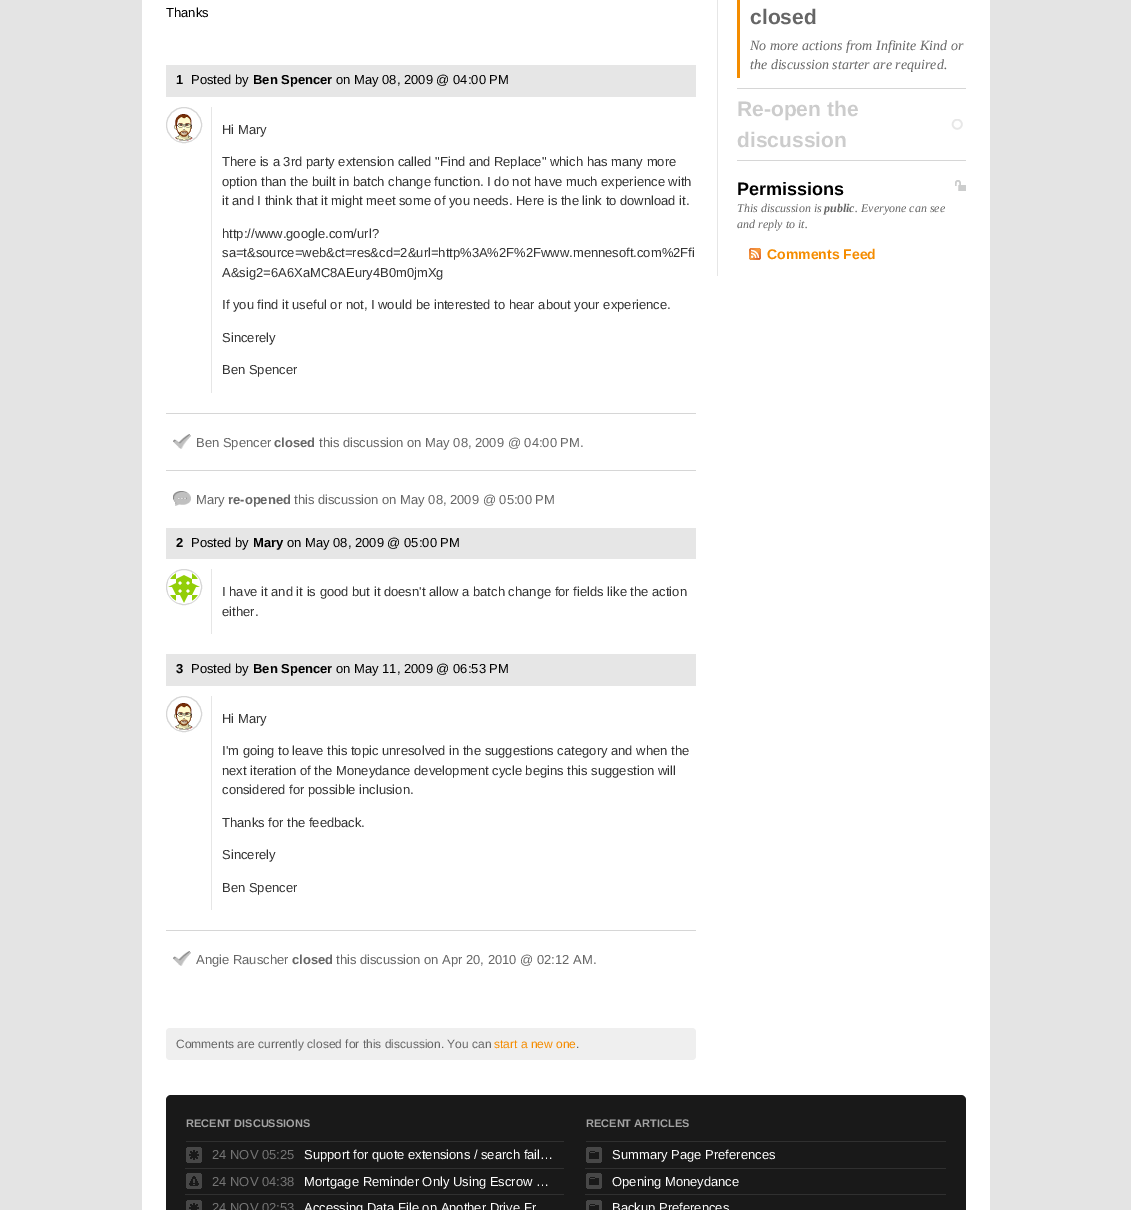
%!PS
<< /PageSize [1131 1210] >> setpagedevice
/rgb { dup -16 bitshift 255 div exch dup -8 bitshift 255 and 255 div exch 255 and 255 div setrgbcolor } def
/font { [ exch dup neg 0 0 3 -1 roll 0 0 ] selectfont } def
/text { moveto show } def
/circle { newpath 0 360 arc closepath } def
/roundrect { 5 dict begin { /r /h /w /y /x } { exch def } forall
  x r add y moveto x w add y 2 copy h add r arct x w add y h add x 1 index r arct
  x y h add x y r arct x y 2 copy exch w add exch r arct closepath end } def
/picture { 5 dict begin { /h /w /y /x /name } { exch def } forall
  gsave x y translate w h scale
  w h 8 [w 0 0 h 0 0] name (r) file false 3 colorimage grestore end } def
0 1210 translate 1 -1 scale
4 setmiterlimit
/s1 { /LiberationSans-Regular 13 font 16#000000 rgb } def
/s2 { /LiberationSans-Bold 13 font 16#000000 rgb } def
/s3 { /LiberationSans-Regular 13 font 16#333333 rgb } def
/s4 { /LiberationSans-Regular 13 font 16#666666 rgb } def
/s5 { /LiberationSans-Bold 13 font 16#666666 rgb } def
/s6 { /LiberationSans-Regular 12 font 16#666666 rgb } def
/s7 { /LiberationSans-Regular 12 font 16#F58C00 rgb } def
/s8 { /LiberationSans-Bold 21 font 16#666666 rgb } def
/s9 { /LiberationSerif-Italic 14 font 16#666666 rgb } def
/s10 { /LiberationSans-Bold 21 font 16#CCCCCC rgb } def
/s11 { /LiberationSans-Bold 18 font 16#000000 rgb } def
/s12 { /LiberationSerif-Italic 12 font 16#666666 rgb } def
/s13 { /LiberationSerif-BoldItalic 12 font 16#666666 rgb } def
/s14 { /LiberationSans-Bold 14 font 16#F58C00 rgb } def
/s15 { /LiberationSans-Bold 11 font 16#A3A3A3 rgb } def
/s16 { /LiberationSans-Regular 13 font 16#757575 rgb } def
/s17 { /LiberationSans-Regular 13 font 16#FFFFFF rgb } def
16#E4E4E4 rgb
0 0 1131 1210 rectfill
16#FFFFFF rgb
142 0 848 1210 rectfill
s1
(Thanks) 166 17 text
16#E6E6E6 rgb
166 65 530 32 rectfill
s2
(1) 176 84 text
s1
(Posted by) 191 84 text
s2
(Ben Spencer) 253 84 text
s1
(on May 08, 2009 @ 04:00 PM) 336 84 text
16#D6D6D6 rgb
184 125 17.5 circle stroke
(pic1.raw) 174 114 19 27 picture
16#E6E6E6 rgb
211 107 1 286 rectfill
s3
(Hi Mary) 222 134 text
(There is a 3rd party extension called "Find and Replace" which has many more) 222 166 text
(option than the built in batch change function. I do not have much experience with) 222 186 text
(it and I think that it might meet some of you needs. Here is the link to download it.) 222 205 text
(http://www.google.com/url?) 222 238 text
(sa=t&source=web&ct=res&cd=2&url=http%3A%2F%2Fwww.mennesoft.com%2Ffi) 222 257 text
(A&sig2=6A6XaMC8AEury4B0m0jmXg) 222 277 text
(If you find it useful or not, I would be interested to hear about your experience.) 222 309 text
(Sincerely) 222 342 text
(Ben Spencer) 222 374 text
16#D6D6D6 rgb
166 413 530 1 rectfill
(pic2.raw) 173 434 18 15 picture
s4
(Ben Spencer) 196 447 text
s5
(closed) 274 447 text
s4
(this discussion on May 08, 2009 @ 04:00 PM.) 319 447 text
16#D6D6D6 rgb
166 470 530 1 rectfill
(pic3.raw) 173 491 18 15 picture
s4
(Mary) 196 504 text
s5
(re-opened) 228 504 text
s4
(this discussion on May 08, 2009 @ 05:00 PM) 294 504 text
16#E6E6E6 rgb
166 528 530 31 rectfill
s2
(2) 176 547 text
s1
(Posted by) 191 547 text
s2
(Mary) 253 547 text
s1
(on May 08, 2009 @ 05:00 PM) 287 547 text
16#D6D6D6 rgb
184 587 17.5 circle stroke
(pic4.raw) 168 573 32 30 picture
16#E6E6E6 rgb
211 569 1 65 rectfill
s3
(I have it and it is good but it doesn't allow a batch change for fields like the action) 222 596 text
(either.) 222 616 text
16#E6E6E6 rgb
166 654 530 32 rectfill
s2
(3) 176 673 text
s1
(Posted by) 191 673 text
s2
(Ben Spencer) 253 673 text
s1
(on May 11, 2009 @ 06:53 PM) 336 673 text
16#D6D6D6 rgb
184 714 17.5 circle stroke
(pic1.raw) 174 703 19 27 picture
16#E6E6E6 rgb
211 696 1 214 rectfill
s3
(Hi Mary) 222 723 text
(I'm going to leave this topic unresolved in the suggestions category and when the) 222 755 text
(next iteration of the Moneydance development cycle begins this suggestion will) 222 775 text
(considered for possible inclusion.) 222 794 text
(Thanks for the feedback.) 222 827 text
(Sincerely) 222 859 text
(Ben Spencer) 222 892 text
16#D6D6D6 rgb
166 930 530 1 rectfill
(pic2.raw) 173 951 18 15 picture
s4
(Angie Rauscher) 196 964 text
s5
(closed) 292 964 text
s4
(this discussion on Apr 20, 2010 @ 02:12 AM.) 336 964 text
16#EFEFEF rgb
166 1028 530 32 4 roundrect fill
s6
(Comments are currently closed for this discussion. You can) 176 1048 text
s7
(start a new one) 494 1048 text
s6
(.) 576 1048 text
16#E6E6E6 rgb
717 0 1 276 rectfill
16#F48C00 rgb
737 0 3 78 rectfill
s8
(closed) 750 24 text
s9
(No more actions from Infinite Kind or) 750 50 text
(the discussion starter are required.) 750 69 text
(pic5.raw) 951 119 12 11 picture
16#D6D6D6 rgb
737 88 229 1 rectfill
737 160 229 1 rectfill
s10
(Re-open the) 737 116 text
(discussion) 737 147 text
s11
(Permissions) 737 195 text
(pic6.raw) 955 180 11 11 picture
s12
(This discussion is) 737 212 text
s13
(public) 824 212 text
s12
(. Everyone can see) 855 212 text
(and reply to it.) 737 228 text
(pic7.raw) 749 248 12 12 picture
s14
(Comments Feed) 767 259 text
16#191919 rgb
166 1095 800 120 5 roundrect fill
s15
(RECENT DISCUSSIONS) 186 1127 text
16#303030 rgb
186 1141 378 1 rectfill
(pic8.raw) 186 1147 16 16 picture
s16
(24 NOV 05:25) 212 1159 text
16#303030 rgb
185 1168 379 1 rectfill
s17
(Support for quote extensions / search fail…) 304 1159 text
(pic9.raw) 186 1173 16 16 picture
s16
(24 NOV 04:38) 212 1186 text
16#303030 rgb
185 1194 379 1 rectfill
s17
(Mortgage Reminder Only Using Escrow …) 304 1186 text
(pic10.raw) 186 1200 16 10 picture
s16
(24 NOV 02:53) 212 1212 text
s17
(Accessing Data File on Another Drive Fr) 304 1212 text
s15
(RECENT ARTICLES) 586 1127 text
16#303030 rgb
586 1141 360 1 rectfill
(pic11.raw) 586 1147 16 16 picture
585 1168 361 1 rectfill
s17
(Summary Page Preferences) 612 1159 text
(pic11.raw) 586 1173 16 16 picture
16#303030 rgb
585 1194 361 1 rectfill
s17
(Opening Moneydance) 612 1186 text
(pic12.raw) 586 1200 16 10 picture
(Backup Preferences) 612 1212 text
showpage
